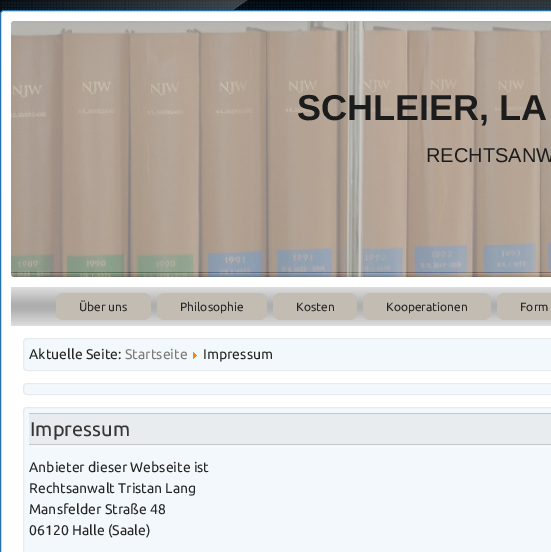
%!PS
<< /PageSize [551 552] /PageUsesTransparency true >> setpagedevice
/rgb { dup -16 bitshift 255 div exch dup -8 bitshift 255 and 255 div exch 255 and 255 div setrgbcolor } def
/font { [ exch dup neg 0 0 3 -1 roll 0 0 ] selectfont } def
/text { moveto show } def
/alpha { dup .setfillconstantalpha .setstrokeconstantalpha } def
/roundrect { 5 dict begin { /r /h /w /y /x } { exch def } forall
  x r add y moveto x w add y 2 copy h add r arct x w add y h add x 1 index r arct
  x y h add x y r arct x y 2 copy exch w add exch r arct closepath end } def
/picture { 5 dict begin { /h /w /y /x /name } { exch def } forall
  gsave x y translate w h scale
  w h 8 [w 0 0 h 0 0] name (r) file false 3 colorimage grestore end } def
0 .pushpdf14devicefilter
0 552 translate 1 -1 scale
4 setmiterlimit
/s1 { /LiberationSans-Bold 36 font 16#1C1C1C rgb } def
/s2 { /LiberationSans-Regular 20 font 16#1C1C1C rgb } def
/s3 { /Ubuntu-Regular 12 font 16#262626 rgb } def
/s4 { /Ubuntu-Regular 14 font 16#262626 rgb } def
/s5 { /Ubuntu-Regular 14 font 16#7A7A7A rgb } def
/s6 { /Ubuntu-Regular 20 font 16#363636 rgb } def
16#FFFFFF rgb
0 0 551 552 rectfill
(pic1.raw) 0 0 551 14 picture
0.5 10.5 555 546 3.5 roundrect gsave fill grestore
16#2572B1 rgb
stroke
(pic2.raw) 11 21 540 256 picture
s1
(SCHLEIER, LA) 297 120 text
s2
(RECHTSANW) 426 162 text
gsave 14 287 moveto 551 287 lineto 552.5 287 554 288.5 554 290 curveto 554 326 lineto 11 326 lineto 11 290 lineto 11 288.5 12.5 287 14 287 curveto closepath clip newpath
<< /ShadingType 2 /ColorSpace /DeviceRGB /Coords [475 287 475 326] /Extend [true true] /Function << /FunctionType 3 /Domain [0 1] /Functions [<< /FunctionType 2 /Domain [0 1] /C0 [0.871 0.871 0.871] /C1 [0.698 0.698 0.698] /N 1 >> << /FunctionType 2 /Domain [0 1] /C0 [0.698 0.698 0.698] /C1 [0.678 0.678 0.678] /N 1 >> << /FunctionType 2 /Domain [0 1] /C0 [0.678 0.678 0.678] /C1 [0.698 0.698 0.698] /N 1 >> << /FunctionType 2 /Domain [0 1] /C0 [0.698 0.698 0.698] /C1 [0.871 0.871 0.871] /N 1 >>] /Bounds [0.4 0.5 0.6] /Encode [0 1 0 1 0 1 0 1] >> >> shfill grestore
16#C2BCB2 rgb
56 293 95 27 7 roundrect fill
s3
(Über uns) 79 311 text
16#C2BCB2 rgb
157 293 110 27 7 roundrect fill
s3
(Philosophie) 180 311 text
16#C2BCB2 rgb
273 293 84 27 7 roundrect fill
s3
(Kosten) 296 311 text
16#C2BCB2 rgb
363 293 128 27 7 roundrect fill
s3
(Kooperationen) 386 311 text
16#C2BCB2 rgb
497 293 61 27 7 roundrect fill
s3
(Form) 520 311 text
16#F2F8FC rgb
23 338 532 33 4 roundrect fill
0.2 alpha
16#B5B5B5 rgb
23.5 338.5 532 32 3.5 roundrect stroke
1 alpha
s4
(Aktuelle Seite:) 29 359 text
s5
(Startseite) 125 359 text
(pic3.raw) 193 352 4 7 picture
s4
(Impressum) 203 359 text
16#F2F8FC rgb
23 383 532 12 4 roundrect fill
0.2 alpha
16#B5B5B5 rgb
23.5 383.5 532 11 3.5 roundrect stroke
1 alpha
16#F2F8FC rgb
23 407 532 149 4 roundrect fill
0.2 alpha
16#B5B5B5 rgb
23.5 407.5 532 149 3.5 roundrect stroke
1 alpha
16#E9ECEE rgb
29 414 522 30 rectfill
16#C7C7C7 rgb
29 413 522 1 rectfill
29 444 522 1 rectfill
s6
(Impressum) 30 436 text
s4
(Anbieter dieser Webseite ist) 29 472 text
(Rechtsanwalt Tristan Lang) 29 493 text
(Mansfelder Straße 48) 29 514 text
(06120 Halle \(Saale\)) 29 535 text
.poppdf14devicefilter showpage
